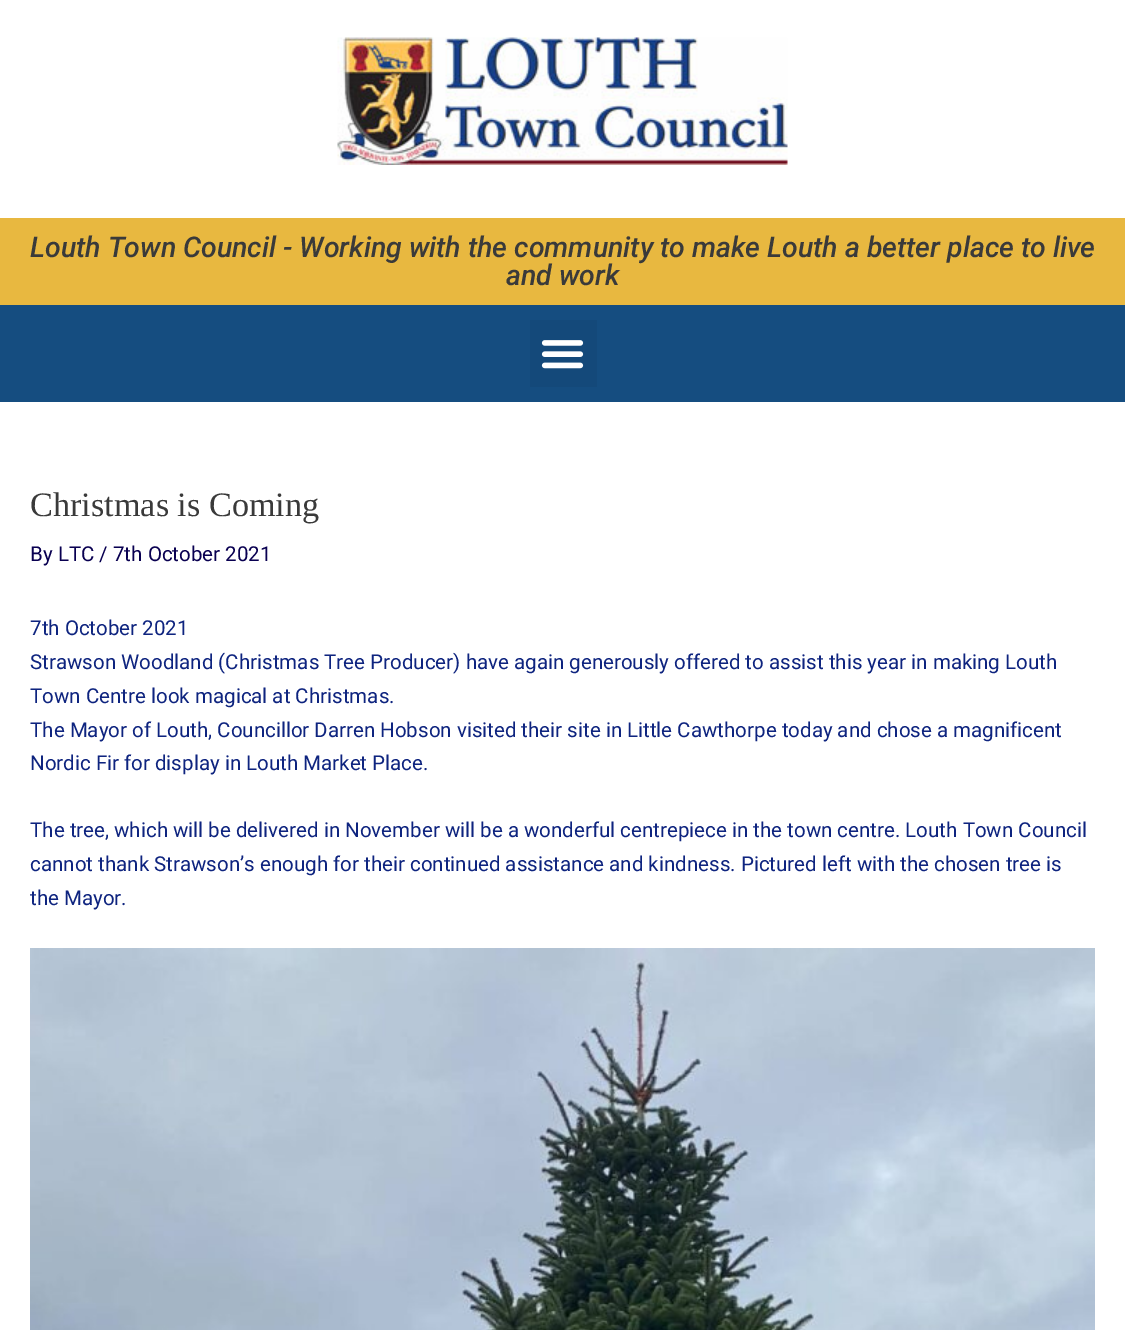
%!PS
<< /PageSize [1125 1330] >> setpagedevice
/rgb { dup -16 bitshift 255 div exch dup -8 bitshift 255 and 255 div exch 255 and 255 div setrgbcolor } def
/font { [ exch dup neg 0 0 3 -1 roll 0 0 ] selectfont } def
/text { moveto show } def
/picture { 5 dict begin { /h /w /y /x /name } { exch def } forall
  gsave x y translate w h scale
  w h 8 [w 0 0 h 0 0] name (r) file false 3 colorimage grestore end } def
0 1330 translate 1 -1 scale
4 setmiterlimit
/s1 { /Roboto-MediumItalic 28.5 font 16#3A3A3A rgb } def
/s2 { /LiberationSerif-Regular 34.25 font 16#3A3A3A rgb } def
/s3 { /Roboto-Regular 20.52 font 16#090051 rgb } def
/s4 { /Roboto-Regular 20.52 font 16#0E247F rgb } def
16#FFFFFF rgb
0 0 1125 1330 rectfill
(pic1.raw) 337 37 451 128 picture
16#E8B840 rgb
0 218 1125 87 rectfill
s1
(Louth Town Council - Working with the community to make Louth a better place to live) 30 257 text
(and work) 506 285 text
16#154D80 rgb
0 305 1125 97 rectfill
16#14497A rgb
530 320 67 67 rectfill
(pic2.raw) 541 340 43 29 picture
s2
(Christmas is Coming) 30 516 text
s3
(By LTC / 7th October 2021) 30 561 text
s4
(7th October 2021) 30 635 text
(Strawson Woodland \(Christmas Tree Producer\) have again generously offered to assist this year in making Louth) 30 669 text
(Town Centre look magical at Christmas.) 30 703 text
(The Mayor of Louth, Councillor Darren Hobson visited their site in Little Cawthorpe today and chose a magnificent) 30 737 text
(Nordic Fir for display in Louth Market Place.) 30 770 text
(The tree, which will be delivered in November will be a wonderful centrepiece in the town centre. Louth Town Council) 30 837 text
(cannot thank Strawson’s enough for their continued assistance and kindness. Pictured left with the chosen tree is) 30 871 text
(the Mayor.) 30 905 text
(pic3.raw) 30 948 1065 382 picture
showpage
